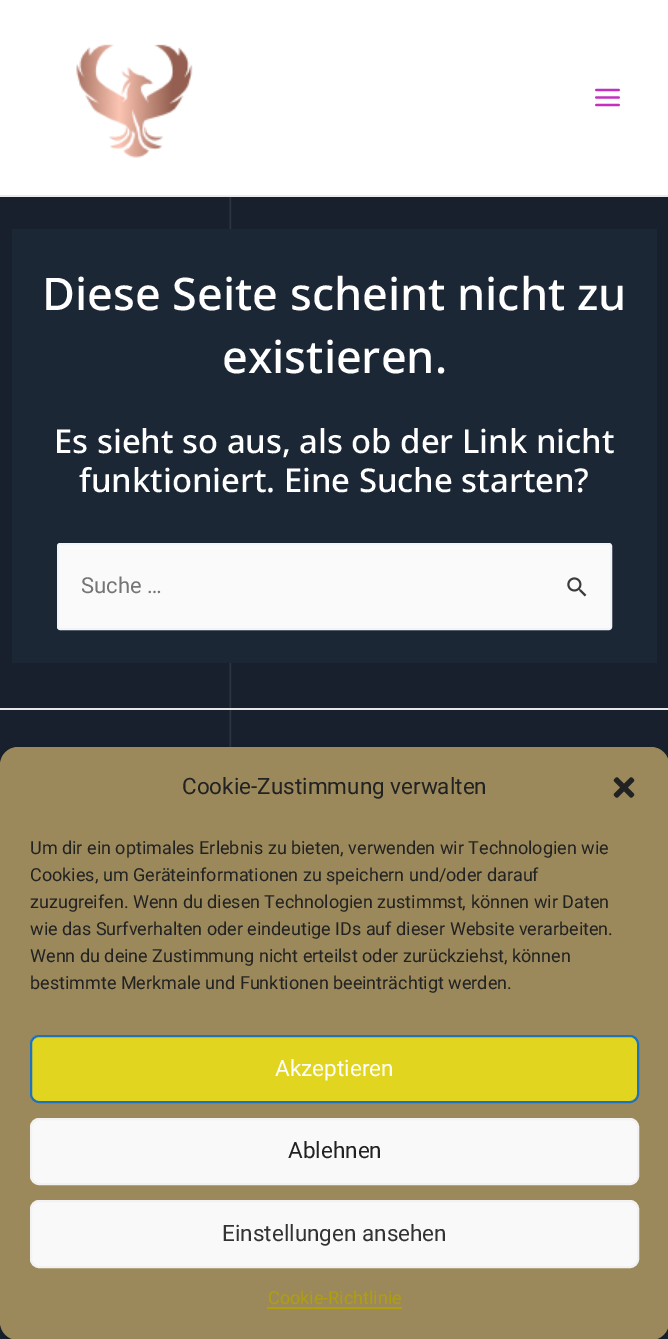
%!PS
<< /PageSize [668 1339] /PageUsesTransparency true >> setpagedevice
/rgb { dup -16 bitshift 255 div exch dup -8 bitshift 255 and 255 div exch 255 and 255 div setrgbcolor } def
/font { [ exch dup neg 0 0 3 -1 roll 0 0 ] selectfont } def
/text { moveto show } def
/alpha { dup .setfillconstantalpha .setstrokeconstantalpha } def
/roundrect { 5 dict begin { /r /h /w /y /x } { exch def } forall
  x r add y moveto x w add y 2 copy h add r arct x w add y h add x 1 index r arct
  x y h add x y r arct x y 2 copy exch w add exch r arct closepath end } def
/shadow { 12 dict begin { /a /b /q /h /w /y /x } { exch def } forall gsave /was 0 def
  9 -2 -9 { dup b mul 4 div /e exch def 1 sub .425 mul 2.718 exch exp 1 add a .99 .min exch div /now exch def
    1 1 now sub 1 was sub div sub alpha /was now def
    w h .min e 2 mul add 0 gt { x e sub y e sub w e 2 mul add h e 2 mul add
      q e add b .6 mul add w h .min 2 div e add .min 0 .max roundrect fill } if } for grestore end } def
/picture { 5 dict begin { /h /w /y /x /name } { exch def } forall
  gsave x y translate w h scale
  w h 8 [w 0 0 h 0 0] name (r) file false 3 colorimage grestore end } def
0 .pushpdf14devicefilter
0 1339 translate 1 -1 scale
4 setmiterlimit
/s1 { /NotoSans-Medium 45 font 16#FFFFFF rgb } def
/s2 { /NotoSans-Medium 32.8 font 16#FFFFFF rgb } def
/s3 { /Roboto-Regular 22 font 16#757575 rgb } def
/s4 { /Roboto-Regular 22.5 font 16#222222 rgb } def
/s5 { /Roboto-Regular 18 font 16#222222 rgb } def
/s6 { /Roboto-Regular 22.5 font 16#FFFFFF rgb } def
/s7 { /Roboto-Regular 22.5 font 16#333333 rgb } def
/s8 { /Roboto-Regular 18 font 16#AF9F08 rgb } def
16#FFFFFF rgb
0 0 668 1339 rectfill
(pic1.raw) 0 197 668 568 picture
16#EAEAEA rgb
0 195 668 2 rectfill
(pic2.raw) 76 44 117 114 picture
(pic3.raw) 595 88 25 19 picture
16#1C2735 rgb
12 229 645 434 rectfill
s1
(Diese Seite scheint nicht zu) 42 310 text
(existieren.) 222 373 text
s2
(Es sieht so aus, als ob der Link nicht) 54 453 text
(funktioniert. Eine Suche starten?) 79 492 text
16#FAFAFA rgb
58 544 553 85 2 roundrect gsave fill grestore
16#F2F5F7 rgb
2 setlinewidth
stroke
s3
(Suche …) 81 593 text
(pic4.raw) 567 577 20 20 picture
16#E6E6E6 rgb
0 708 668 2 rectfill
16#1C2735 rgb
0 1322 668 17 rectfill
16#000000 rgb
0 756 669 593 18 4.5 0.23 shadow
0 762 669 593 18 15 0.19 shadow
16#9B895B rgb
0 747 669 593 18 roundrect fill
s4
(Cookie-Zustimmung verwalten) 182 794 text
(pic5.raw) 613 777 22 21 picture
s5
(Um dir ein optimales Erlebnis zu bieten, verwenden wir Technologien wie) 30 854 text
(Cookies, um Geräteinformationen zu speichern und/oder darauf) 30 881 text
(zuzugreifen. Wenn du diesen Technologien zustimmst, können wir Daten) 30 908 text
(wie das Surfverhalten oder eindeutige IDs auf dieser Website verarbeiten.) 30 935 text
(Wenn du deine Zustimmung nicht erteilst oder zurückziehst, können) 30 962 text
(bestimmte Merkmale und Funktionen beeinträchtigt werden.) 30 989 text
16#E2D51F rgb
31 1036 607 66 8 roundrect gsave fill grestore
16#1E73BE rgb
stroke
s6
(Akzeptieren) 275 1076 text
16#F9F9F9 rgb
31 1119 607 65 8 roundrect gsave fill grestore
16#F2F2F2 rgb
stroke
s4
(Ablehnen) 288 1158 text
16#F9F9F9 rgb
31 1201 607 66 8 roundrect gsave fill grestore
16#F2F2F2 rgb
stroke
s7
(Einstellungen ansehen) 222 1241 text
s8
(Cookie-Richtlinie) 268 1304 text
267 1307 135 2 rectfill
.poppdf14devicefilter showpage
